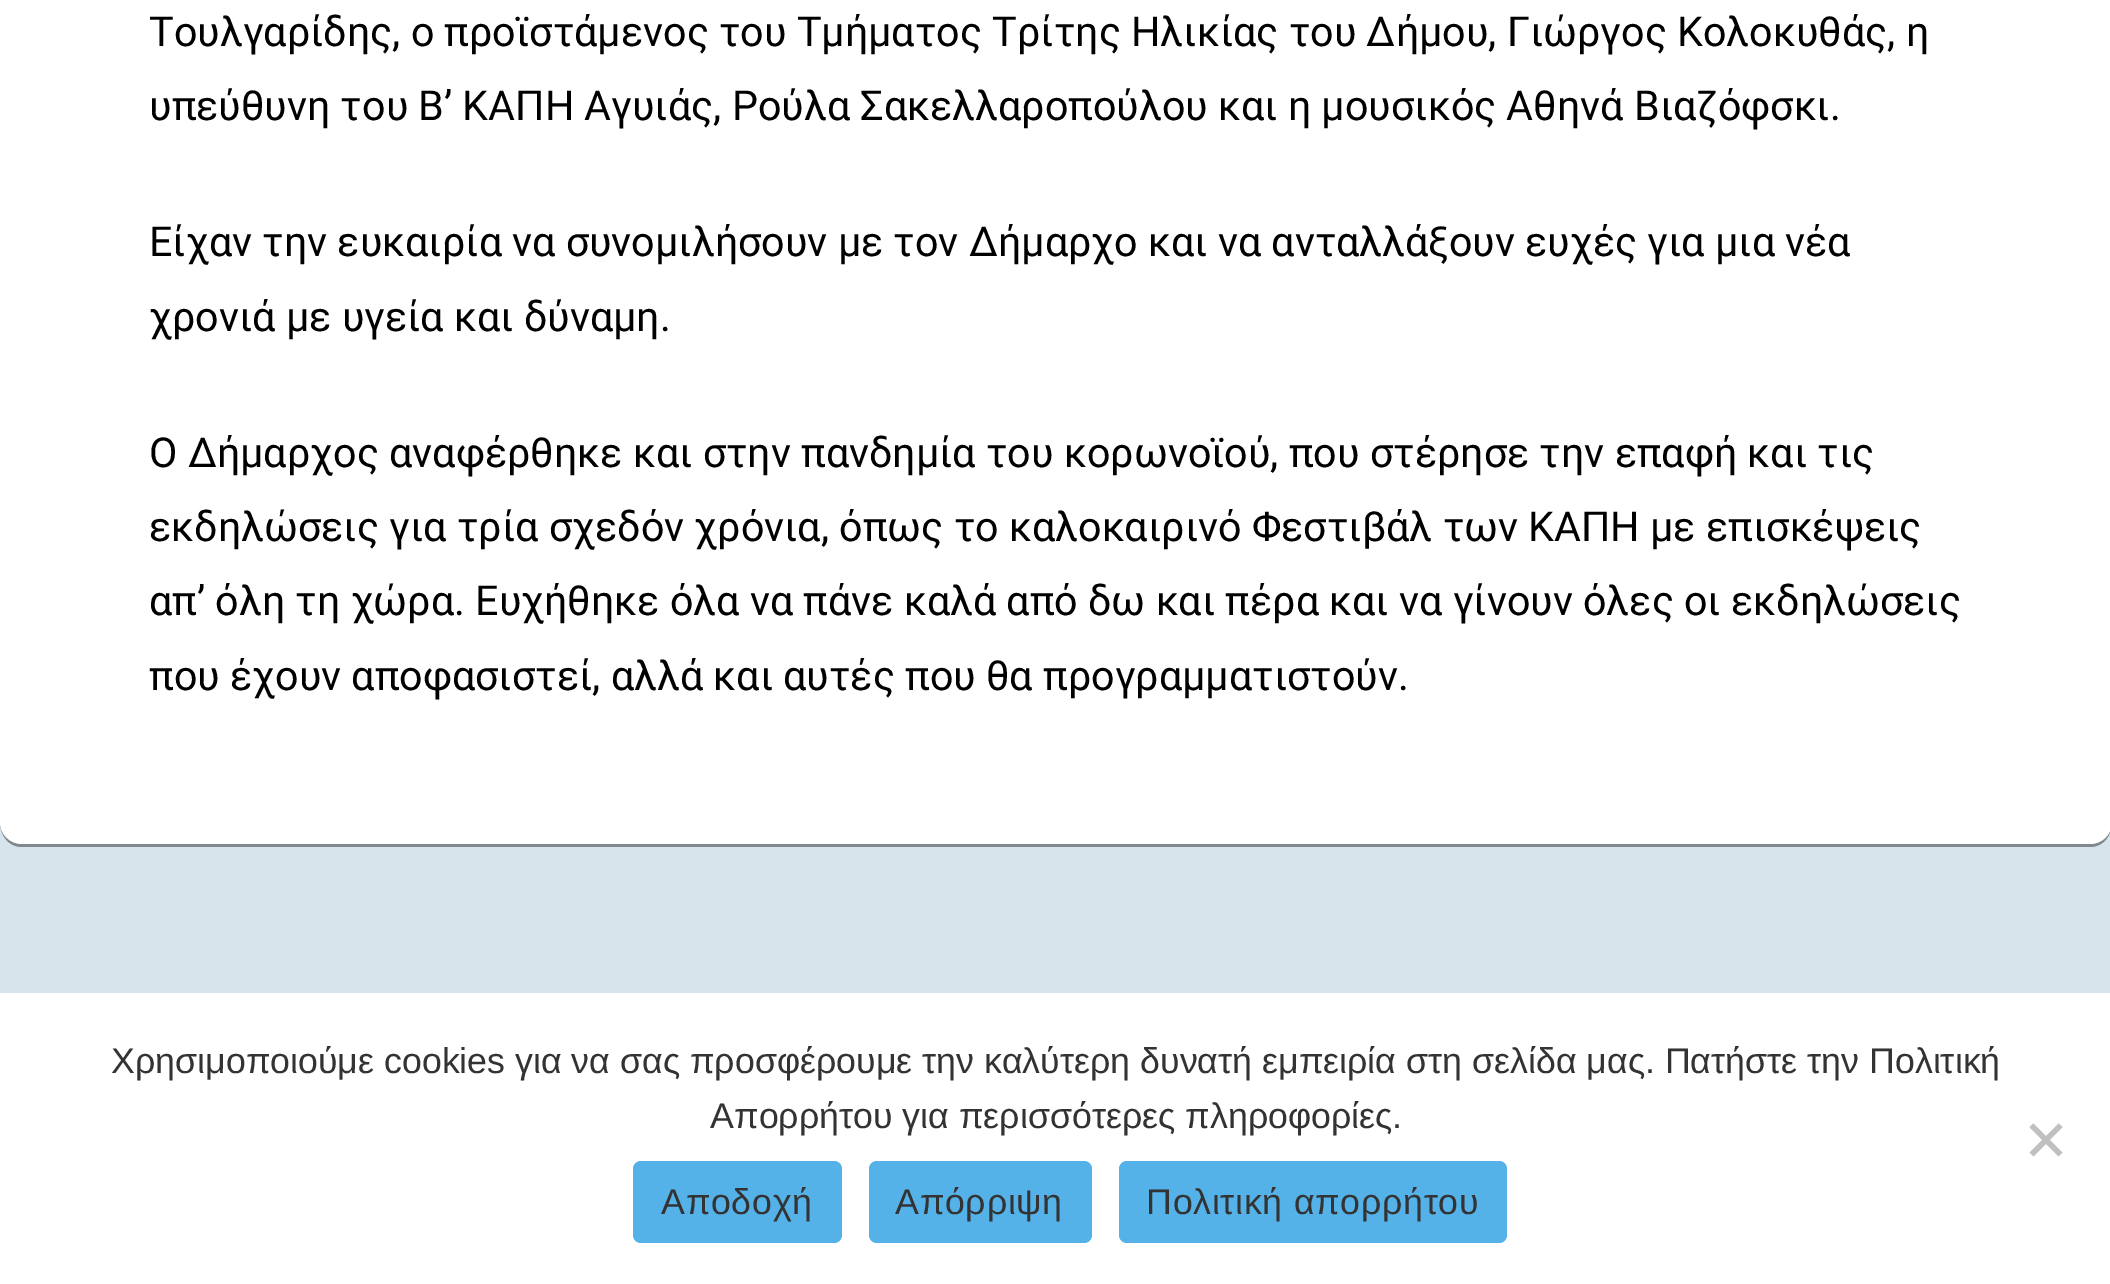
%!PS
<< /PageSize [2110 1284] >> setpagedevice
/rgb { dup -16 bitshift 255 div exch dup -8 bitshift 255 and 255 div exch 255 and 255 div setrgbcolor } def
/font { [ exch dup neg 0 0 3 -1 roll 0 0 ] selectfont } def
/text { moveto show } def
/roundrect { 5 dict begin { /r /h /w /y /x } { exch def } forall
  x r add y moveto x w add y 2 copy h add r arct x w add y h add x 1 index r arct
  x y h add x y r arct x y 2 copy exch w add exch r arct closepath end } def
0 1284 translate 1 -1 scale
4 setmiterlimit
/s1 { /Roboto-Regular 41.25 font 16#000000 rgb } def
/s2 { /LiberationSans-Regular 35.75 font 16#333333 rgb } def
16#D6E4EC rgb
0 0 2110 1284 rectfill
16#80898E rgb
0 822 moveto 0 835 8 847 22 847 curveto 2090 847 lineto 2104 847 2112 835 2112 822 curveto 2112 834 2102 844 2090 844 curveto 22 844 lineto 10 844 0 834 0 822 curveto closepath fill
16#FFFFFF rgb
0 -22 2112 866 22 roundrect fill
s1
(Τουλγαρίδης, ο προϊστάμενος του Τμήματος Τρίτης Ηλικίας του Δήμου, Γιώργος Κολοκυθάς, η) 149 46 text
(υπεύθυνη του Β’ ΚΑΠΗ Αγυιάς, Ρούλα Σακελλαροπούλου και η μουσικός Αθηνά Βιαζόφσκι.) 149 120 text
(Είχαν την ευκαιρία να συνομιλήσουν με τον Δήμαρχο και να ανταλλάξουν ευχές για μια νέα) 149 256 text
(χρονιά με υγεία και δύναμη.) 149 331 text
(Ο Δήμαρχος αναφέρθηκε και στην πανδημία του κορωνοϊού, που στέρησε την επαφή και τις) 149 467 text
(εκδηλώσεις για τρία σχεδόν χρόνια, όπως το καλοκαιρινό Φεστιβάλ των ΚΑΠΗ με επισκέψεις) 149 541 text
(απ’ όλη τη χώρα. Ευχήθηκε όλα να πάνε καλά από δω και πέρα και να γίνουν όλες οι εκδηλώσεις) 149 615 text
(που έχουν αποφασιστεί, αλλά και αυτές που θα προγραμματιστούν.) 149 690 text
16#FFFFFF rgb
0 993 2110 291 rectfill
s2
(Χρησιμοποιούμε cookies για να σας προσφέρουμε την καλύτερη δυνατή εμπειρία στη σελίδα μας. Πατήστε την Πολιτική) 111 1073 text
(Απορρήτου για περισσότερες πληροφορίες.) 710 1128 text
16#C0C0C0 rgb
2058.5 1123.5 moveto 2062.5 1127 lineto 2033.5 1156.5 lineto 2029.5 1152.5 lineto closepath fill
2029.5 1127 moveto 2033.5 1123.5 lineto 2062.5 1152.5 lineto 2058.5 1156.5 lineto closepath fill
16#55B2E8 rgb
633 1161 209 82 8 roundrect fill
16#333333 rgb
661 1214 moveto 0.7 0 (Αποδοχή) ashow
16#55B2E8 rgb
869 1161 223 82 8 roundrect fill
16#333333 rgb
895 1214 moveto 0.7 0 (Απόρριψη) ashow
16#55B2E8 rgb
1119 1161 388 82 8 roundrect fill
16#333333 rgb
1146 1214 moveto 0.7 0 (Πολιτική απορρήτου) ashow
showpage
